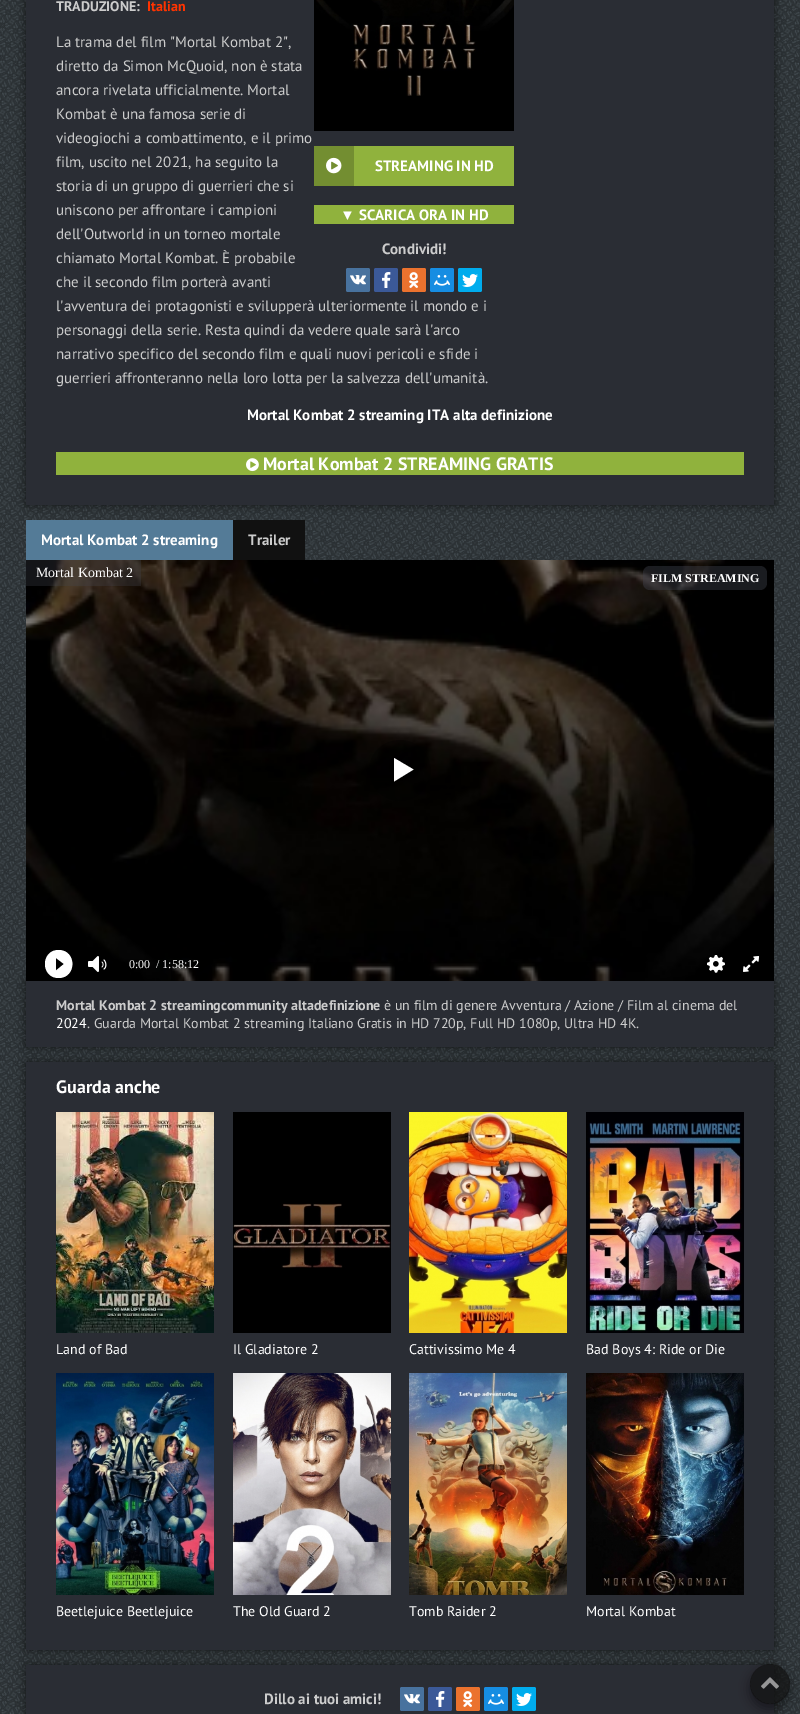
%!PS
<< /PageSize [800 1714] /PageUsesTransparency true >> setpagedevice
/rgb { dup -16 bitshift 255 div exch dup -8 bitshift 255 and 255 div exch 255 and 255 div setrgbcolor } def
/font { [ exch dup neg 0 0 3 -1 roll 0 0 ] selectfont } def
/text { moveto show } def
/alpha { dup .setfillconstantalpha .setstrokeconstantalpha } def
/circle { newpath 0 360 arc closepath } def
/roundrect { 5 dict begin { /r /h /w /y /x } { exch def } forall
  x r add y moveto x w add y 2 copy h add r arct x w add y h add x 1 index r arct
  x y h add x y r arct x y 2 copy exch w add exch r arct closepath end } def
/shadow { 12 dict begin { /a /b /q /h /w /y /x } { exch def } forall gsave /was 0 def
  9 -2 -9 { dup b mul 4 div /e exch def 1 sub .425 mul 2.718 exch exp 1 add a .99 .min exch div /now exch def
    1 1 now sub 1 was sub div sub alpha /was now def
    w h .min e 2 mul add 0 gt { x e sub y e sub w e 2 mul add h e 2 mul add
      q e add b .6 mul add w h .min 2 div e add .min 0 .max roundrect fill } if } for grestore end } def
/picture { 5 dict begin { /h /w /y /x /name } { exch def } forall
  gsave x y translate w h scale
  w h 8 [w 0 0 h 0 0] name (r) file false 3 colorimage grestore end } def
0 .pushpdf14devicefilter
0 1714 translate 1 -1 scale
4 setmiterlimit
/s1 { /PTSans-Bold 14 font 16#CCCCCC rgb } def
/s2 { /PTSans-Bold 14 font 16#FF3300 rgb } def
/s3 { /PTSans-Regular 15 font 16#CCCCCC rgb } def
/s4 { /PTSans-Bold 15 font 16#FFFFFF rgb } def
/s5 { /LiberationSans-Bold 15 font 16#FFFFFF rgb } def
/s6 { /PTSans-Bold 15 font 16#CCCCCC rgb } def
/s7 { /PTSans-Bold 18 font 16#FFFFFF rgb } def
/s8 { /LiberationSerif-Regular 14 font 16#FFFFFF rgb } def
/s9 { /LiberationSerif-Bold 12 font 16#FFFFFF rgb } def
/s10 { /LiberationSerif-Regular 12 font 16#FFFFFF rgb } def
/s11 { /PTSans-Regular 14 font 16#CCCCCC rgb } def
/s12 { /PTSans-Regular 14 font 16#FFFFFF rgb } def
16#FFFFFF rgb
0 0 800 1714 rectfill
(pic1.raw) 0 0 800 1714 picture
16#000000 rgb
26 -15 748 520 0 5 0.6 shadow
16#2A2D34 rgb
26 0 748 505 rectfill
s1
(TRADUZIONE:) 56 11 text
s2
(Italian) 147 11 text
s3
(La trama del film "Mortal Kombat 2",) 56 47 text
(diretto da Simon McQuoid, non è stata) 56 71 text
(ancora rivelata ufficialmente. Mortal) 56 95 text
(Kombat è una famosa serie di) 56 119 text
(videogiochi a combattimento, e il primo) 56 143 text
(film, uscito nel 2021, ha seguito la) 56 167 text
(storia di un gruppo di guerrieri che si) 56 191 text
(uniscono per affrontare i campioni) 56 215 text
(dell'Outworld in un torneo mortale) 56 239 text
(chiamato Mortal Kombat. È probabile) 56 263 text
(che il secondo film porterà avanti) 56 287 text
(l'avventura dei protagonisti e svilupperà ulteriormente il mondo e i) 56 311 text
(personaggi della serie. Resta quindi da vedere quale sarà l'arco) 56 335 text
(narrativo specifico del secondo film e quali nuovi pericoli e sfide i) 56 359 text
(guerrieri affronteranno nella loro lotta per la salvezza dell'umanità.) 56 383 text
16#000000 rgb
314 0 200 131 rectfill
(pic2.raw) 316 0 198 96 picture
16#90B23D rgb
354 146 160 40 rectfill
16#738E31 rgb
314 146 40 40 rectfill
(pic3.raw) 326 157 16 17 picture
s4
(STREAMING IN HD) 375 171 text
16#90B23D rgb
314 205 200 19 rectfill
s5
(▼) 340 220 text
s4
(SCARICA ORA IN HD) 359 220 text
s6
(Condividi!) 382 254 text
16#48729E rgb
346 268 24 24 2 roundrect fill
(pic4.raw) 350 275 16 10 picture
16#3B5998 rgb
374 268 24 24 2 roundrect fill
(pic5.raw) 382 272 9 16 picture
16#EB722E rgb
402 268 24 24 2 roundrect fill
(pic6.raw) 409 272 10 16 picture
16#168DE2 rgb
430 268 24 24 2 roundrect fill
(pic7.raw) 434 275 16 11 picture
16#00ACED rgb
458 268 24 24 2 roundrect fill
(pic8.raw) 462 274 16 13 picture
s4
(Mortal Kombat 2 streaming ITA alta definizione) 247 420 text
16#90B23D rgb
56 452 688 23 rectfill
(pic9.raw) 246 458 13 14 picture
s7
(Mortal Kombat 2 STREAMING GRATIS) 263 470 text
16#547B97 rgb
26 520 207 40 rectfill
s4
(Mortal Kombat 2 streaming) 41 545 text
16#111111 rgb
233 520 72 40 rectfill
s6
(Trailer) 248 545 text
16#000000 rgb
26 981 748 66 0 5 0.6 shadow
(pic10.raw) 26 560 748 421 picture
0.3 alpha
16#424550 rgb
26 560 115 26 rectfill
1 alpha
s8
(Mortal Kombat 2) 36 577 text
0.4 alpha
16#424550 rgb
643 566 124 24 7 roundrect fill
1 alpha
s9
(FILM STREAMING) 651 582 text
0.3 alpha
16#000000 rgb
369 740 62 61 30.5 roundrect fill
1 alpha
16#FFFFFF rgb
394 758 moveto 394 781.5 lineto 413.5 769.5 lineto 394 758 lineto fill
58.5 950 moveto 40.5 950 40.5 978 58.5 978 curveto 77 978 77 950 58.5 950 curveto closepath 56 970.5 moveto 56 958 lineto 64 964 lineto closepath fill
(pic11.raw) 88 956 19 16 picture
s10
(0:00) 129 968 text
(pic14.raw) 171 962 442 19 picture
(/ 1:58:12) 156 968 text
(pic12.raw) 707 955 18 18 picture
(pic13.raw) 743 956 17 16 picture
16#2A2D34 rgb
26 981 748 66 rectfill
s1
(Mortal Kombat 2 streamingcommunity altadefinizione) 56 1010 text
s11
(è un film di genere Avventura / Azione / Film al cinema del) 384 1010 text
s12
(2024) 56 1028 text
s11
(. Guarda Mortal Kombat 2 streaming Italiano Gratis in HD 720p, Full HD 1080p, Ultra HD 4K.) 87 1028 text
16#000000 rgb
26 1062 748 588 0 5 0.6 shadow
16#2A2D34 rgb
26 1062 748 588 rectfill
s7
(Guarda anche) 56 1093 text
(pic15.raw) 56 1112 158 221 picture
s12
(Land of Bad) 56 1354 text
16#000000 rgb
233 1112 158 221 rectfill
(pic16.raw) 233 1203 158 65 picture
s12
(Il Gladiatore 2) 233 1354 text
(pic17.raw) 409 1112 158 221 picture
(Cattivissimo Me 4) 409 1354 text
(pic18.raw) 586 1112 158 221 picture
(Bad Boys 4: Ride or Die) 586 1354 text
(pic19.raw) 56 1373 158 222 picture
(Beetlejuice Beetlejuice) 56 1616 text
(pic20.raw) 233 1373 158 222 picture
(The Old Guard 2) 233 1616 text
(pic21.raw) 409 1373 158 222 picture
(Tomb Raider 2) 409 1616 text
(pic22.raw) 586 1373 158 222 picture
(Mortal Kombat) 586 1616 text
16#000000 rgb
26 1665 748 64 0 5 0.6 shadow
16#2A2D34 rgb
26 1665 748 49 rectfill
s6
(Dillo ai tuoi amici!) 264 1704 text
16#48729E rgb
400 1687 24 24 2 roundrect fill
(pic4.raw) 404 1694 16 10 picture
16#3B5998 rgb
428 1687 24 24 2 roundrect fill
(pic5.raw) 436 1691 9 16 picture
16#EB722E rgb
456 1687 24 24 2 roundrect fill
(pic6.raw) 463 1691 10 16 picture
16#168DE2 rgb
484 1687 24 24 2 roundrect fill
(pic7.raw) 488 1694 16 11 picture
16#00ACED rgb
512 1687 24 24 2 roundrect fill
(pic8.raw) 516 1693 16 13 picture
gsave
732 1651 moveto 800 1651 lineto 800 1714 lineto 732 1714 lineto closepath 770 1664 moveto 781 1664 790 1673 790 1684 curveto 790 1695 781 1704 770 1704 curveto 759 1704 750 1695 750 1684 curveto 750 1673 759 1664 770 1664 curveto closepath eoclip newpath
16#000000 rgb
750 1669 40 40 20 5.5 0.42 shadow
grestore
0.7 alpha
16#111111 rgb
770 1684 20 circle fill
1 alpha
(pic23.raw) 761 1677 18 12 picture
.poppdf14devicefilter showpage
